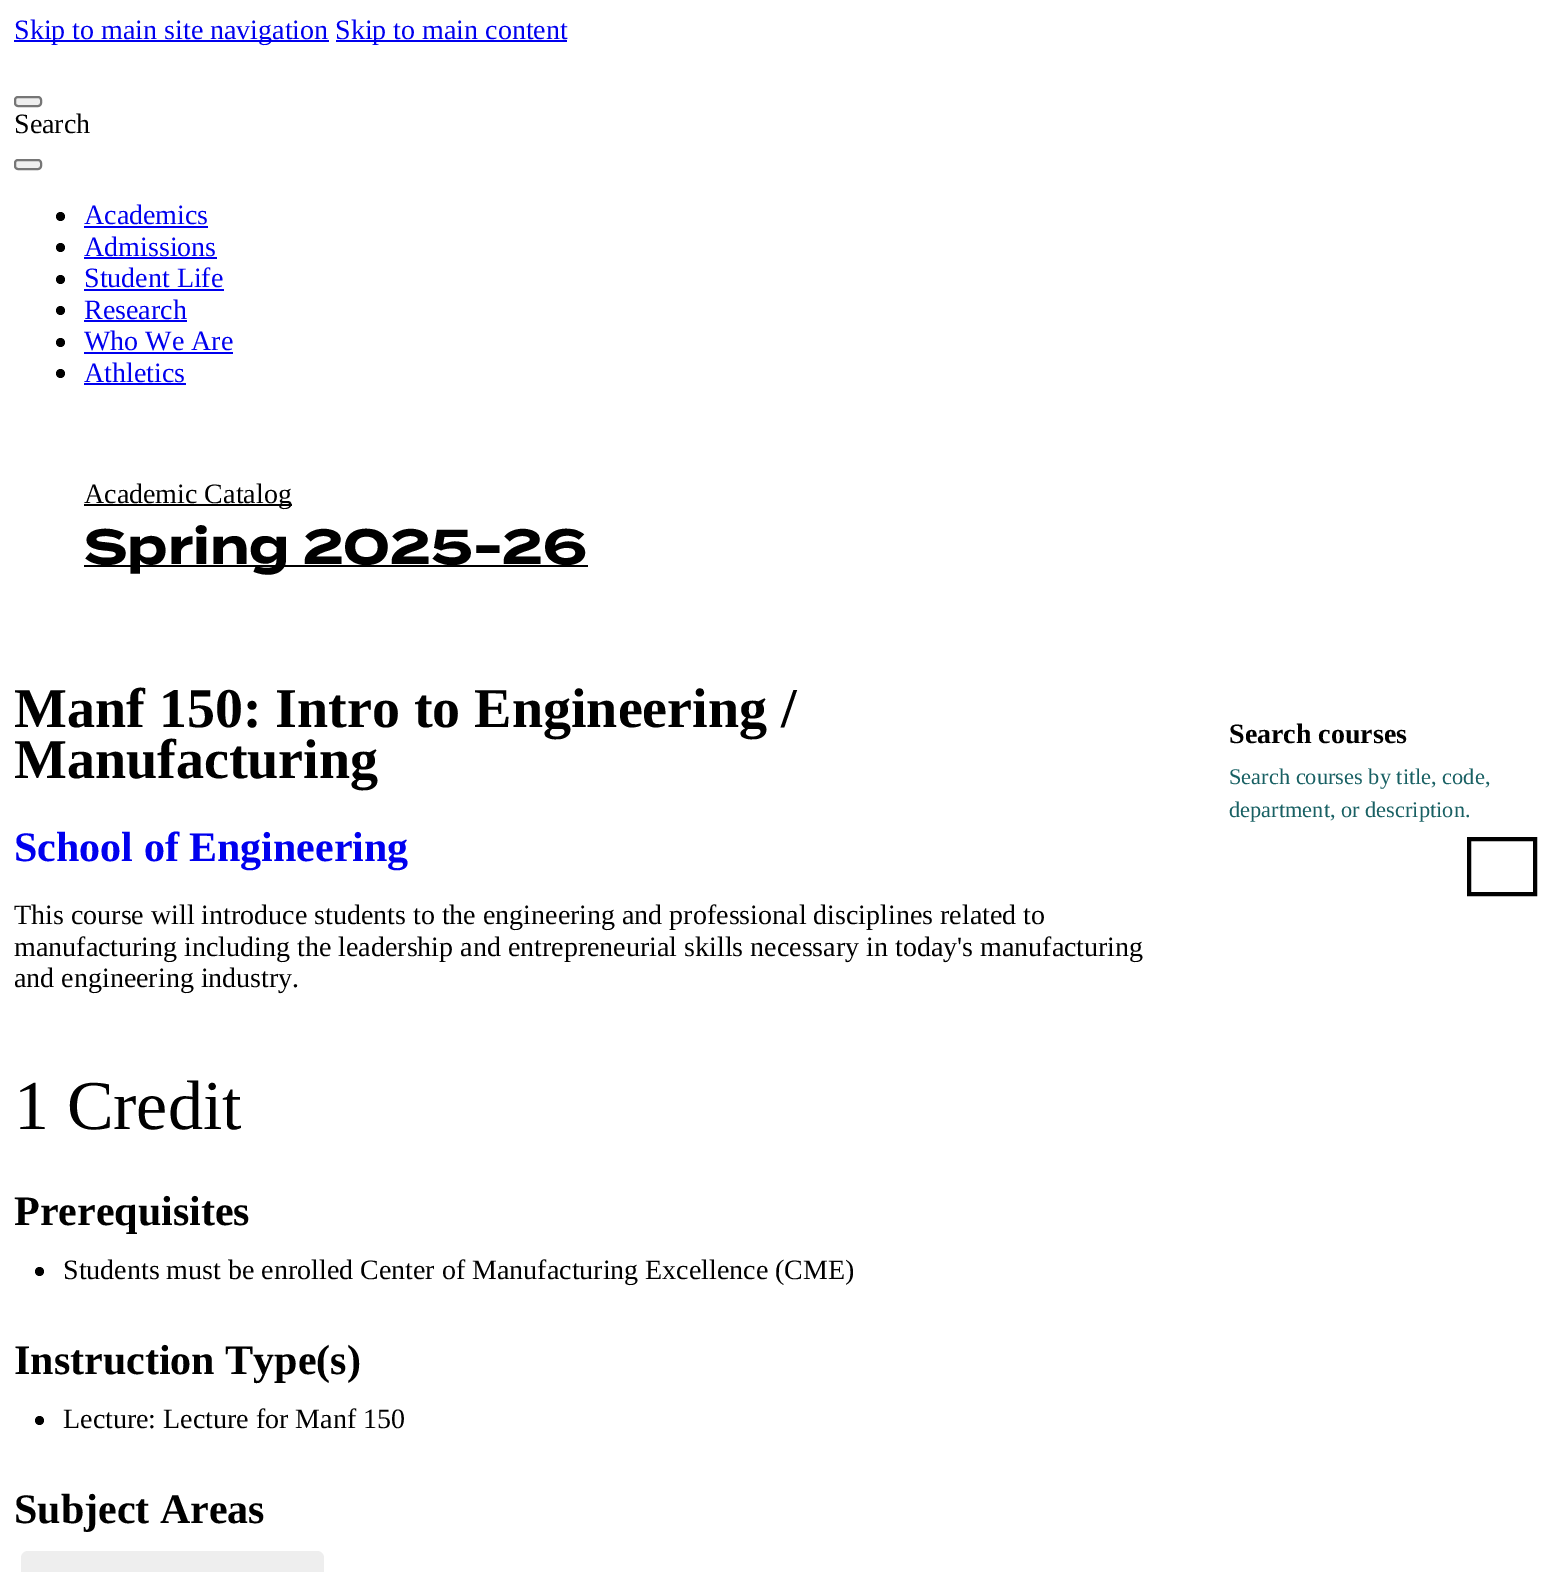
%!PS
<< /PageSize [1567 1572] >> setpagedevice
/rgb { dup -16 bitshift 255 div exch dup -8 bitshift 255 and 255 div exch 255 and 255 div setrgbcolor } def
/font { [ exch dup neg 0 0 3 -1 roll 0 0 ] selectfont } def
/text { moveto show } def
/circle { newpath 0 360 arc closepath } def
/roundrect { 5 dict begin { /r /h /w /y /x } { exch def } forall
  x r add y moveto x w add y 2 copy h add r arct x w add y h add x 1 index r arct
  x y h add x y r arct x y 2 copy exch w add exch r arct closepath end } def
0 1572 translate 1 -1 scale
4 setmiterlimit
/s1 { /LiberationSerif-Regular 28 font 16#0000EE rgb } def
/s2 { /LiberationSerif-Regular 28 font 16#000000 rgb } def
/s3 { /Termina-Bold 49 font 16#000000 rgb } def
/s4 { /LiberationSerif-Bold 56 font 16#000000 rgb } def
/s5 { /LiberationSerif-Bold 42 font 16#0000EE rgb } def
/s6 { /LiberationSerif-Regular 70 font 16#000000 rgb } def
/s7 { /LiberationSerif-Bold 42 font 16#000000 rgb } def
/s8 { /LiberationSerif-Bold 28 font 16#000000 rgb } def
/s9 { /LiberationSerif-Regular 22.4 font 16#186063 rgb } def
16#FFFFFF rgb
0 0 1567 1572 rectfill
16#0000EE rgb
14 40 315 2 rectfill
s1
(Skip to main site navigation) 14 39 text
336 40 231 2 rectfill
(Skip to main content) 335 39 text
16#EFEFEF rgb
15 97 26 9 3 roundrect gsave fill grestore
16#767676 rgb
2 setlinewidth
stroke
s2
(Search) 14 133 text
16#EFEFEF rgb
15 160 26 9 3 roundrect gsave fill grestore
16#767676 rgb
stroke
16#000000 rgb
60.5 216.5 4.5 circle fill
s1
(Academics) 84 224 text
84 226 124 2 rectfill
16#000000 rgb
60.5 247.5 4.5 circle fill
s1
(Admissions) 84 256 text
84 257 133 2 rectfill
16#000000 rgb
60.5 279.5 4.5 circle fill
s1
(Student Life) 84 287 text
84 289 140 2 rectfill
16#000000 rgb
60.5 310.5 4.5 circle fill
s1
(Research) 84 319 text
84 320 103 2 rectfill
16#000000 rgb
60.5 342.5 4.5 circle fill
s1
(Who We Are) 84 350 text
84 352 149 2 rectfill
16#000000 rgb
60.5 373.5 4.5 circle fill
s1
(Athletics) 84 382 text
84 383 102 2 rectfill
16#000000 rgb
84 504 208 2 rectfill
(Academic Catalog) 84 503 text
84 565 504 2 rectfill
s3
(Spring 2025-26) 84 564 text
s4
(Manf 150: Intro to Engineering /) 14 727 text
(Manufacturing) 14 778 text
s5
(School of Engineering) 14 861 text
s2
(This course will introduce students to the engineering and professional disciplines related to) 14 924 text
(manufacturing including the leadership and entrepreneurial skills necessary in today's manufacturing) 14 956 text
(and engineering industry.) 14 987 text
s6
(1 Credit) 14 1129 text
s7
(Prerequisites) 14 1225 text
39.5 1271.5 4.5 circle fill
s2
(Students must be enrolled Center of Manufacturing Excellence \(CME\)) 63 1279 text
s7
(Instruction Type\(s\)) 14 1374 text
39.5 1420.5 4.5 circle fill
s2
(Lecture: Lecture for Manf 150) 63 1428 text
s7
(Subject Areas) 14 1523 text
16#EEEEEE rgb
21 1551 303 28 7 roundrect fill
s8
(Search courses) 1229 743 text
s9
(Search courses by title, code,) 1229 784 text
(department, or description.) 1229 817 text
16#000000 rgb
4 setlinewidth
1469 839 66 55 rectstroke
showpage
